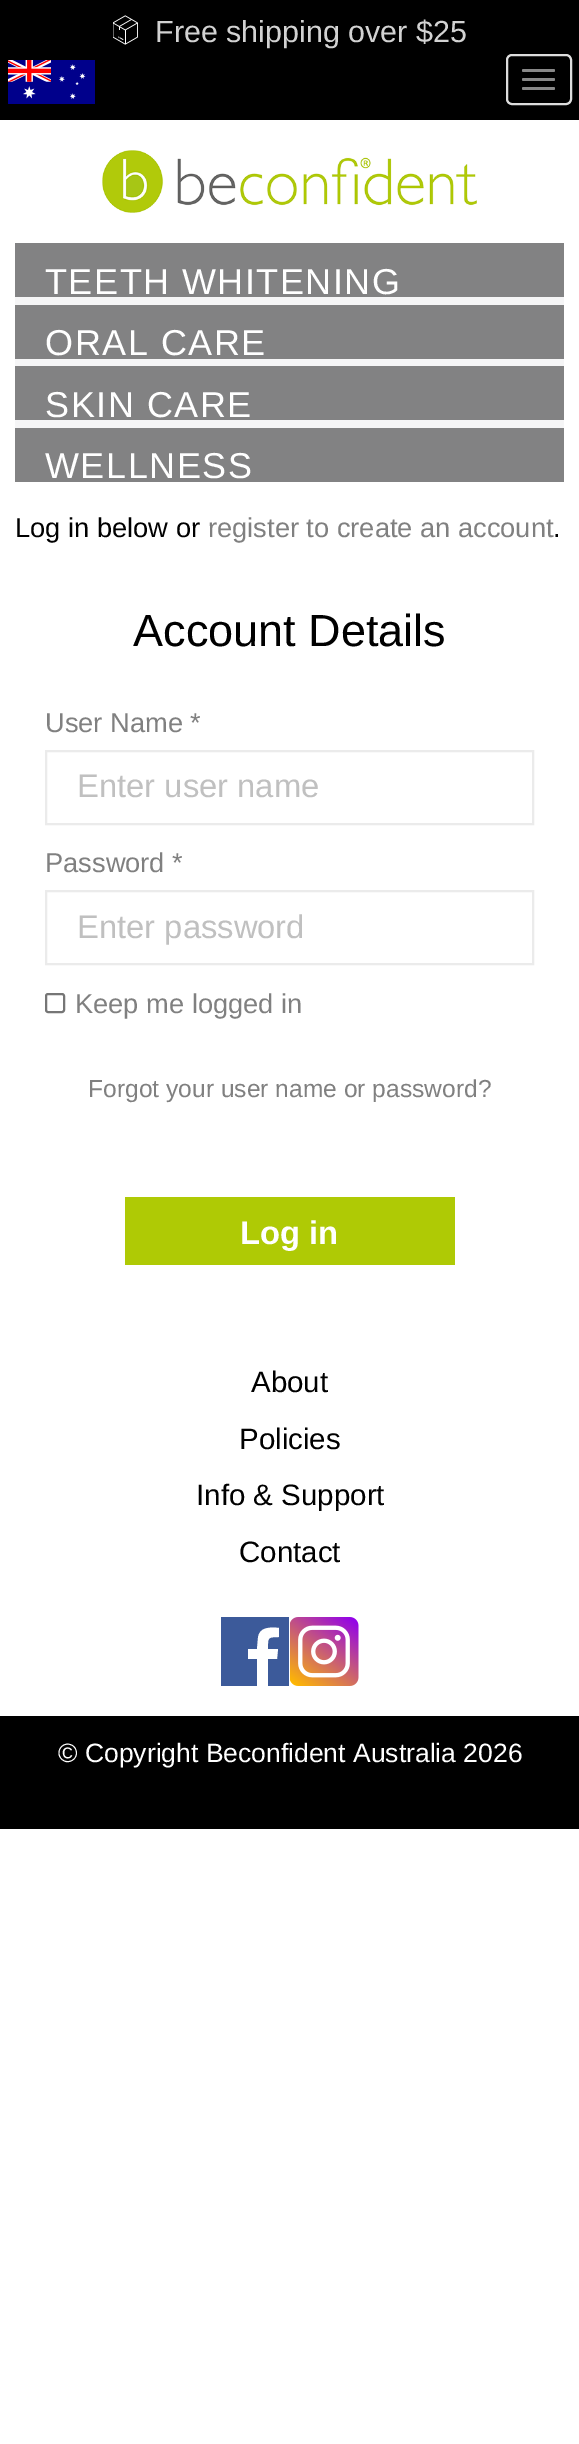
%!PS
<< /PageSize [579 2444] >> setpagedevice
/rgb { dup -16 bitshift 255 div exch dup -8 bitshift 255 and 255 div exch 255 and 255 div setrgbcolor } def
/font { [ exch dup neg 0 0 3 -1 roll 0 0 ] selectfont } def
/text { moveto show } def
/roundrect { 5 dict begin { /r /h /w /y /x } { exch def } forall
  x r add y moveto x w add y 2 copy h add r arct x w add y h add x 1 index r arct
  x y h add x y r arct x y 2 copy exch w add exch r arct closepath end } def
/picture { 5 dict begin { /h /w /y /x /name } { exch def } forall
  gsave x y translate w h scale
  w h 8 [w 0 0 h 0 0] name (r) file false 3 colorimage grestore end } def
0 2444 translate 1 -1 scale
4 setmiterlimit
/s1 { /LiberationSans-Regular 30.5 font 16#D2D2D2 rgb } def
/s2 { /LiberationSans-Regular 27.25 font 16#000000 rgb } def
/s3 { /LiberationSans-Regular 27.25 font 16#808080 rgb } def
/s4 { /LiberationSans-Regular 45 font 16#000000 rgb } def
/s5 { /LiberationSans-Regular 32.75 font 16#C0C0C0 rgb } def
/s6 { /LiberationSans-Regular 24.6 font 16#808080 rgb } def
/s7 { /LiberationSans-Bold 32.75 font 16#FFFFFF rgb } def
/s8 { /LiberationSans-Regular 29.5 font 16#000000 rgb } def
/s9 { /LiberationSans-Regular 26.5 font 16#FFFFFF rgb } def
16#FFFFFF rgb
0 0 579 2444 rectfill
16#000000 rgb
0 0 579 120 rectfill
(pic1.raw) 113 15 25 30 picture
s1
(Free shipping over $25) 155 42 text
(pic2.raw) 8 60 87 44 picture
16#DDDDDD rgb
2 setlinewidth
507 55 64 49 5 roundrect stroke
16#888888 rgb
522 69 33 3 1.5 roundrect fill
522 78 33 3 1.5 roundrect fill
522 87 33 3 1.5 roundrect fill
(pic3.raw) 102 150 375 63 picture
16#F5F5F6 rgb
15 297 549 131 rectfill
16#828283 rgb
15 243 549 54 rectfill
/LiberationSans-Regular 36 font
16#FFFFFF rgb
45 294 moveto 1.5 0 (TEETH WHITENING) ashow
16#828283 rgb
15 305 549 54 rectfill
16#FFFFFF rgb
45 355 moveto 1.5 0 (ORAL CARE) ashow
16#828283 rgb
15 366 549 54 rectfill
16#FFFFFF rgb
45 417 moveto 1.5 0 (SKIN CARE) ashow
16#828283 rgb
15 428 549 54 rectfill
16#FFFFFF rgb
45 478 moveto 1.5 0 (WELLNESS) ashow
s2
(Log in below or) 15 537 text
s3
(register to create an account) 208 537 text
s2
(.) 553 537 text
s4
(Account Details) 133 646 text
s3
(User Name *) 45 732 text
16#EBEBEB rgb
46 751 487 73 rectstroke
s5
(Enter user name) 77 797 text
s3
(Password *) 45 872 text
16#EBEBEB rgb
46 891 487 73 rectstroke
s5
(Enter password) 77 938 text
16#767676 rgb
46 994 18 18 2 roundrect stroke
s3
(Keep me logged in) 75 1013 text
s6
(Forgot your user name or password?) 88 1097 text
16#AFCA05 rgb
125 1197 330 68 rectfill
s7
(Log in) 240 1244 text
s8
(About) 251 1392 text
(Policies) 239 1449 text
(Info & Support) 196 1505 text
(Contact) 239 1562 text
16#3C5A9A rgb
221 1617 68 69 rectfill
16#FFFFFF rgb
268 1686 moveto 268 1659 lineto 277 1659 lineto 278 1649 lineto 268 1649 lineto 268 1638 267 1637 279 1637 curveto 279 1628 lineto 270 1627 259 1627 258 1638 curveto 257 1649 lineto 248 1649 lineto 248 1659 lineto 257 1659 lineto 257 1686 lineto closepath fill
(pic4.raw) 290 1617 69 69 picture
16#000000 rgb
0 1716 579 113 rectfill
s9
(© Copyright Beconfident Australia 2026) 58 1762 text
showpage
